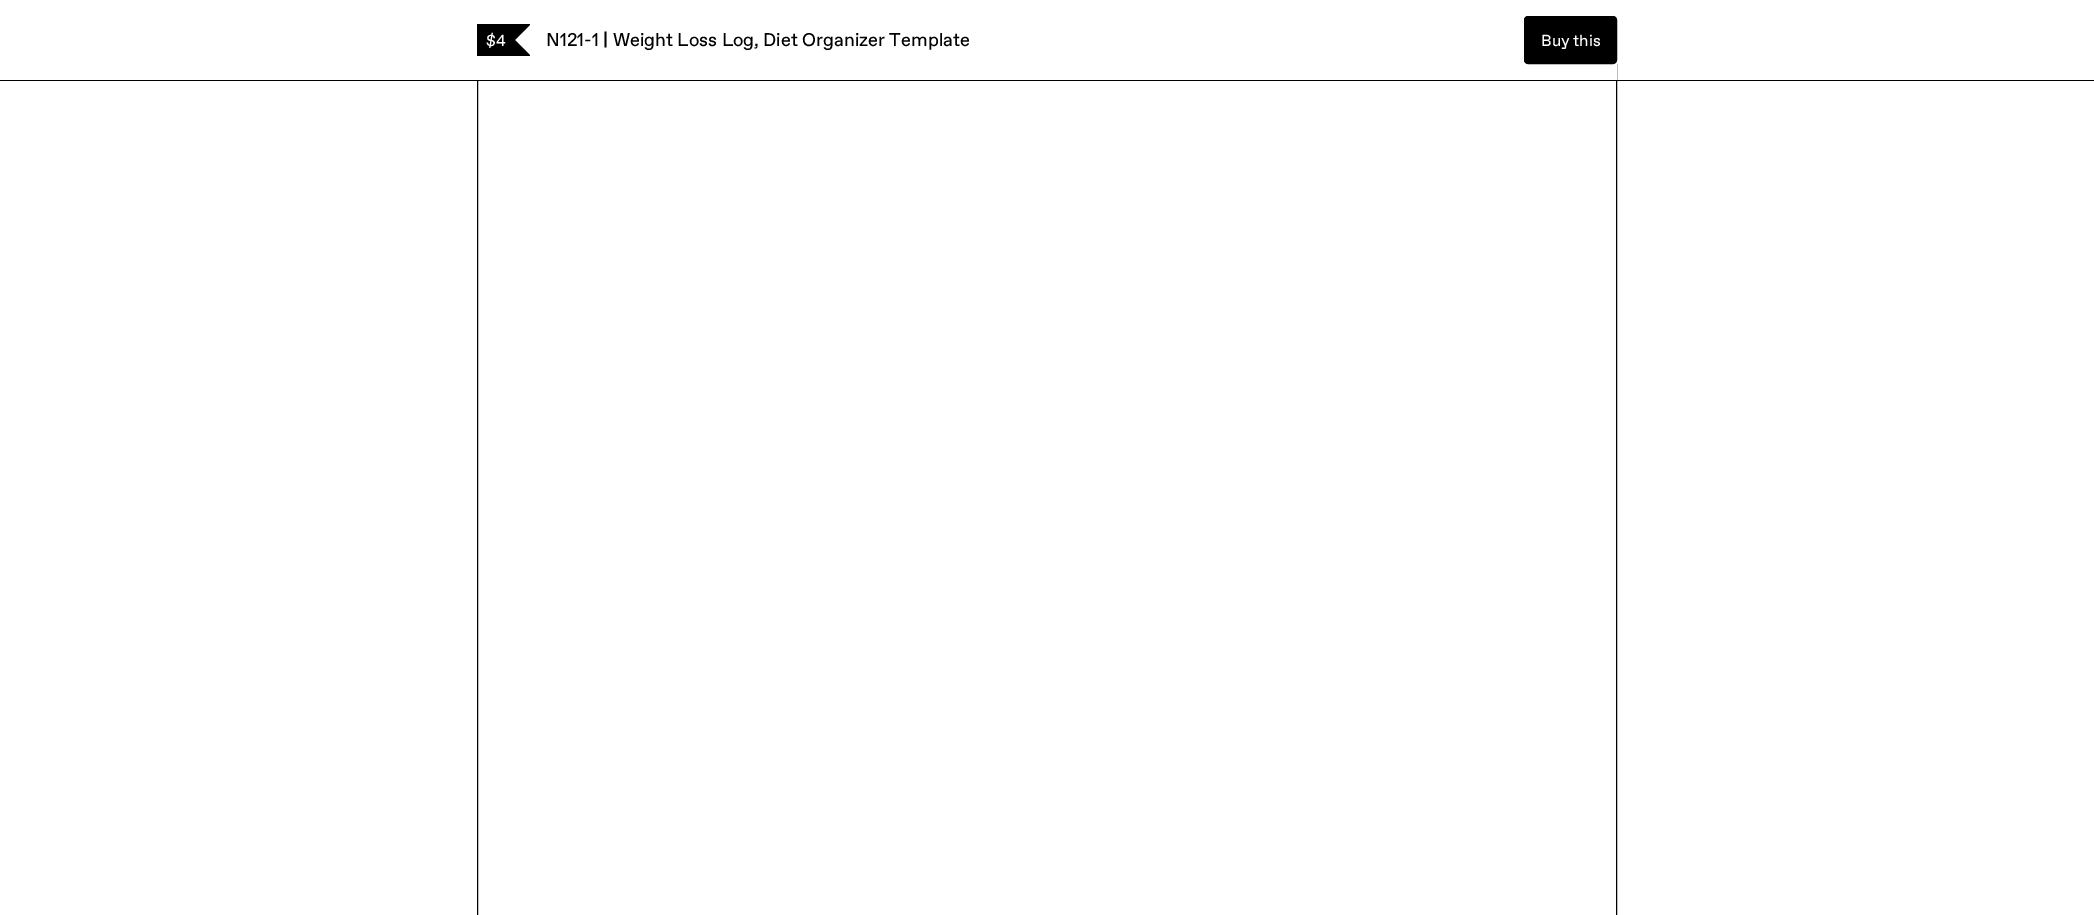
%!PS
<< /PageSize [2094 915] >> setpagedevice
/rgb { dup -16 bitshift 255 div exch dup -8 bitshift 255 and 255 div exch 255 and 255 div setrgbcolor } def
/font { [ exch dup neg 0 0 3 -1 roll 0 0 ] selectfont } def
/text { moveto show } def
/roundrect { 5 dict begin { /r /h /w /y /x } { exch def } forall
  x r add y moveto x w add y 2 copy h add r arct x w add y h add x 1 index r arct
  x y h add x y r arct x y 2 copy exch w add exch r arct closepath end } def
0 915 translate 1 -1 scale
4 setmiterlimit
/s1 { /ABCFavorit-Regular 16 font 16#FFFFFF rgb } def
/s2 { /ABCFavorit-Regular 18.4 font 16#000000 rgb } def
16#FFFFFF rgb
0 0 2094 915 rectfill
16#000000 rgb
477.5 64.5 1139 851 rectstroke
0 80 2094 1 rectfill
16#FFFFFF rgb
477 64 1140 16 rectfill
16#000000 rgb
477 24 53 1 rectfill
477 55 53 1 rectfill
477 24 1 32 rectfill
478 25 36 30 rectfill
s1
($4) 486 46 text
16#000000 rgb
514 25 moveto 530 25 lineto 515 40 lineto closepath 530 55 moveto 514 55 lineto 515 40 lineto closepath fill
514 25 1 30 rectfill
s2
(N121-1 | Weight Loss Log, Diet Organizer Template) 546 46 text
1524.5 16.5 92 47 3.5 roundrect gsave fill grestore
stroke
s1
(Buy this) 1541 46 text
showpage
